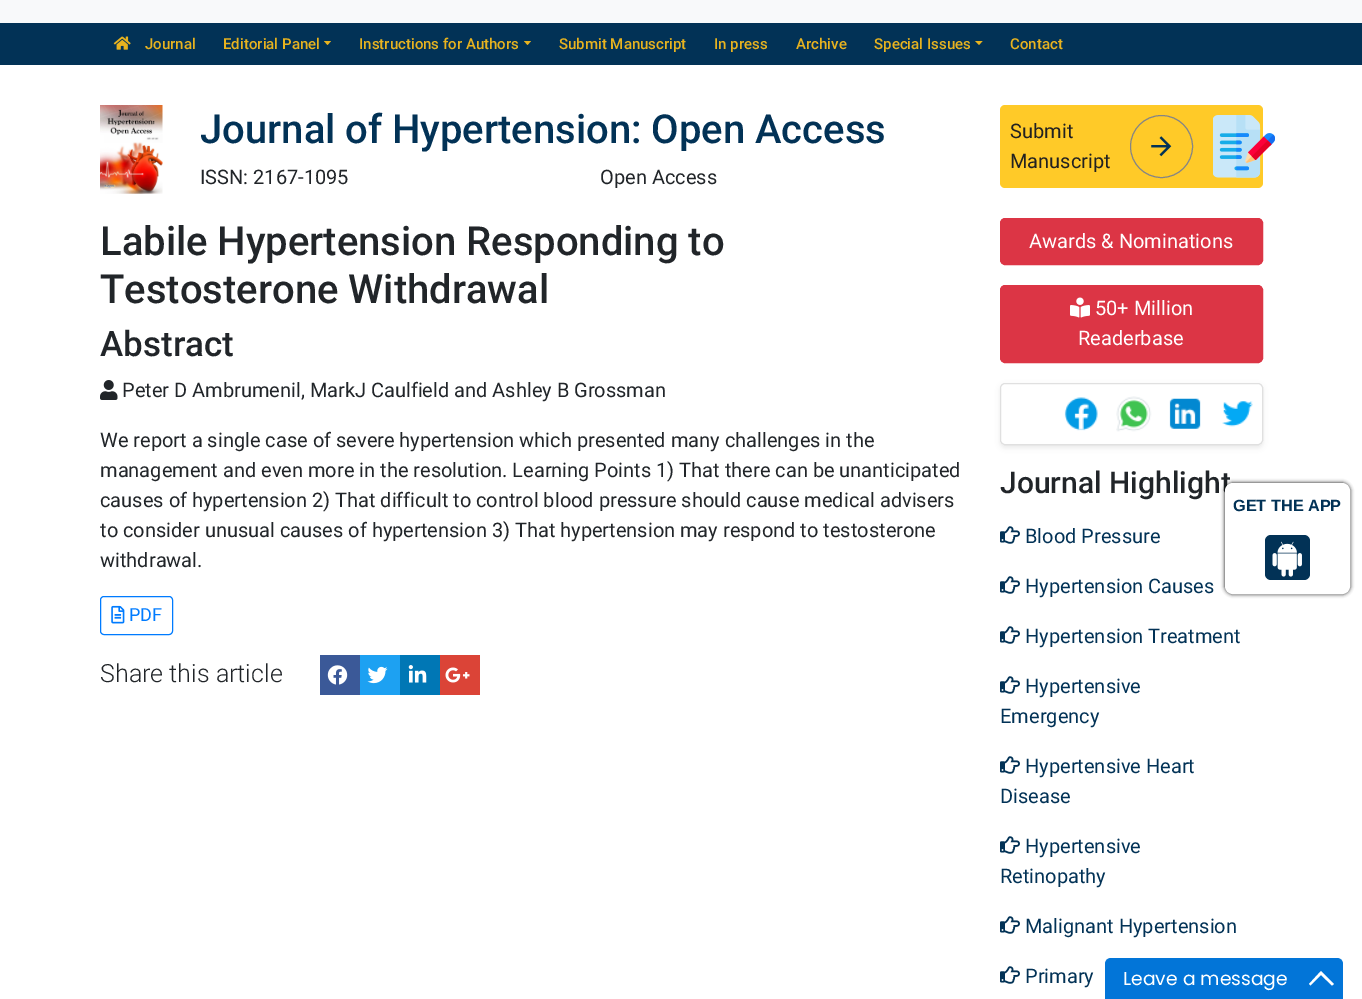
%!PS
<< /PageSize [1362 999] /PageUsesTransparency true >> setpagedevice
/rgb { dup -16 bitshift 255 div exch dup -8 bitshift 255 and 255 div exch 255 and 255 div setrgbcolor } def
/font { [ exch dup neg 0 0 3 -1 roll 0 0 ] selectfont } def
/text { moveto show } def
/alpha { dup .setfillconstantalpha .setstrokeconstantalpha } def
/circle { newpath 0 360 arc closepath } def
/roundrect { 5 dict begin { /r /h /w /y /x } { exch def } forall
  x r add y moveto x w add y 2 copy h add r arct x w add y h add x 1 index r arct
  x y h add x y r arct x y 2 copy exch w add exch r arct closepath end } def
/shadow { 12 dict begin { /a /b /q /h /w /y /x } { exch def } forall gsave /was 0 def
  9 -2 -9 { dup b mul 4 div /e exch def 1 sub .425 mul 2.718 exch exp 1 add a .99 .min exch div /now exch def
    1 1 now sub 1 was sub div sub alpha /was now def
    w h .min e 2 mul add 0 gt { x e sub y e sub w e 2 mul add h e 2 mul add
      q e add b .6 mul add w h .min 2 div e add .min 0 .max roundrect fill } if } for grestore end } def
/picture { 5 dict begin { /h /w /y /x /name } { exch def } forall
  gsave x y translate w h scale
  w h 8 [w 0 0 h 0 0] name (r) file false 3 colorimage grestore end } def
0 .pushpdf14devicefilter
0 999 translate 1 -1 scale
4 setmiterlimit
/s1 { /Roboto-Medium 15 font 16#E8B31F rgb } def
/s2 { /Roboto-Medium 40 font 16#023256 rgb } def
/s3 { /Roboto-Regular 20 font 16#212529 rgb } def
/s4 { /Roboto-Regular 20 font 16#212121 rgb } def
/s5 { /Roboto-Medium 40 font 16#212529 rgb } def
/s6 { /Roboto-Medium 35 font 16#212529 rgb } def
/s7 { /Roboto-Regular 18 font 16#007BFF rgb } def
/s8 { /Roboto-Light 25 font 16#212529 rgb } def
/s9 { /Roboto-Regular 20 font 16#FFFFFF rgb } def
/s10 { /Roboto-Medium 30 font 16#212529 rgb } def
/s11 { /Roboto-Regular 20 font 16#023256 rgb } def
/s12 { /LiberationSans-Bold 16.25 font 16#023256 rgb } def
/s13 { /Poppins-Regular 18.75 font 16#FFFFFF rgb } def
16#FFFFFF rgb
0 0 1362 999 rectfill
16#F8F9FA rgb
0 0 1362 23 rectfill
16#023256 rgb
0 23 1362 42 rectfill
(pic1.raw) 113 36 18 14 picture
s1
(Journal) 145 49 text
(Editorial Panel) 223 49 text
324 41 moveto 331 41 lineto 327.5 45 lineto closepath fill
(Instructions for Authors) 359 49 text
524 41 moveto 531 41 lineto 527.5 45 lineto closepath fill
(Submit Manuscript) 559 49 text
(In press) 714 49 text
(Archive) 796 49 text
(Special Issues) 874 49 text
975 41 moveto 982.5 41 lineto 979 45 lineto closepath fill
(Contact) 1010 49 text
(pic2.raw) 100 105 63 89 picture
s2
(Journal of Hypertension: Open Access) 200 143 text
s3
(ISSN: 2167-1095) 200 184 text
(Open Access) 600 184 text
16#FFCA28 rgb
1000 105 263 83 5 roundrect fill
s4
(Submit) 1010 138 text
16#858585 rgb
1161.5 146.5 31 circle stroke
(pic3.raw) 1151 136 21 21 picture
(pic4.raw) 1213 115 62 63 picture
s4
(Manuscript) 1010 168 text
s5
(Labile Hypertension Responding to) 100 255 text
(Testosterone Withdrawal) 100 303 text
s6
(Abstract) 100 356 text
(pic5.raw) 100 380 18 20 picture
s3
(Peter D Ambrumenil, MarkJ Caulfield and Ashley B Grossman) 122 397 text
(We report a single case of severe hypertension which presented many challenges in the) 100 447 text
(management and even more in the resolution. Learning Points 1\) That there can be unanticipated) 100 477 text
(causes of hypertension 2\) That difficult to control blood pressure should cause medical advisers) 100 507 text
(to consider unusual causes of hypertension 3\) That hypertension may respond to testosterone) 100 537 text
(withdrawal.) 100 567 text
16#007BFF rgb
100.5 596.5 72 38 3.5 roundrect stroke
(pic6.raw) 111 605 14 19 picture
s7
(PDF) 129 621 text
s8
(Share this article) 100 682 text
16#3B5998 rgb
320 655 40 40 rectfill
(pic7.raw) 327 665 21 20 picture
16#1DA1F2 rgb
360 655 40 40 rectfill
(pic8.raw) 367 666 21 18 picture
16#0077B5 rgb
400 655 40 40 rectfill
(pic9.raw) 408 665 19 18 picture
16#DB4437 rgb
440 655 40 40 rectfill
(pic10.raw) 445 667 25 16 picture
16#DC3545 rgb
1000.5 218.5 262 46 4.5 roundrect gsave fill grestore
stroke
s9
(Awards & Nominations) 1029 248 text
16#DC3545 rgb
1000.5 285.5 262 77 4.5 roundrect gsave fill grestore
stroke
(pic11.raw) 1070 297 20 21 picture
s9
(50+ Million) 1095 315 text
(Readerbase) 1078 345 text
16#000000 rgb
1000 385 263 63 5 2.5 0.07 shadow
16#FFFFFF rgb
1000 383 263 62 5 roundrect fill
0.12 alpha
16#000000 rgb
1000.5 383.5 262 61 4.5 roundrect stroke
1 alpha
(pic12.raw) 1064 397 34 34 picture
(pic13.raw) 1116 396 36 36 picture
(pic14.raw) 1169 398 32 31 picture
(pic15.raw) 1222 401 31 26 picture
s10
(Journal Highlight) 1000 493 text
(pic16.raw) 1000 526 20 18 picture
s11
(Blood Pressure) 1025 543 text
(pic16.raw) 1000 576 20 18 picture
(Hypertension Causes) 1025 593 text
(pic16.raw) 1000 626 20 18 picture
(Hypertension Treatment) 1025 643 text
(pic16.raw) 1000 676 20 18 picture
(Hypertensive) 1025 693 text
(Emergency) 1000 723 text
(pic16.raw) 1000 756 20 18 picture
(Hypertensive Heart) 1025 773 text
(Disease) 1000 803 text
(pic16.raw) 1000 836 20 18 picture
(Hypertensive) 1025 853 text
(Retinopathy) 1000 883 text
(pic16.raw) 1000 916 20 18 picture
(Malignant Hypertension) 1025 933 text
(pic16.raw) 1000 966 20 18 picture
(Primary) 1025 983 text
16#000000 rgb
1225 483 125 111 8 2 1 shadow
16#FFFFFF rgb
1225.5 483.5 124 110 7.5 roundrect gsave fill grestore
stroke
s12
(GET THE APP) 1233 511 text
1265 535 45 45 6 roundrect fill
(pic17.raw) 1272 541 30 36 picture
16#0275D8 rgb
1111 958 moveto 1337 958 lineto 1340.5 958 1343 960.5 1343 964 curveto 1343 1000 lineto 1105 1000 lineto 1105 964 lineto 1105 960.5 1107.5 958 1111 958 curveto closepath fill
s13
(Leave a message) 1123 985 text
1321 971 moveto 1334 984 lineto 1332 985.5 lineto 1321 975 lineto 1310.5 985.5 lineto 1309 984 lineto closepath fill
.poppdf14devicefilter showpage
